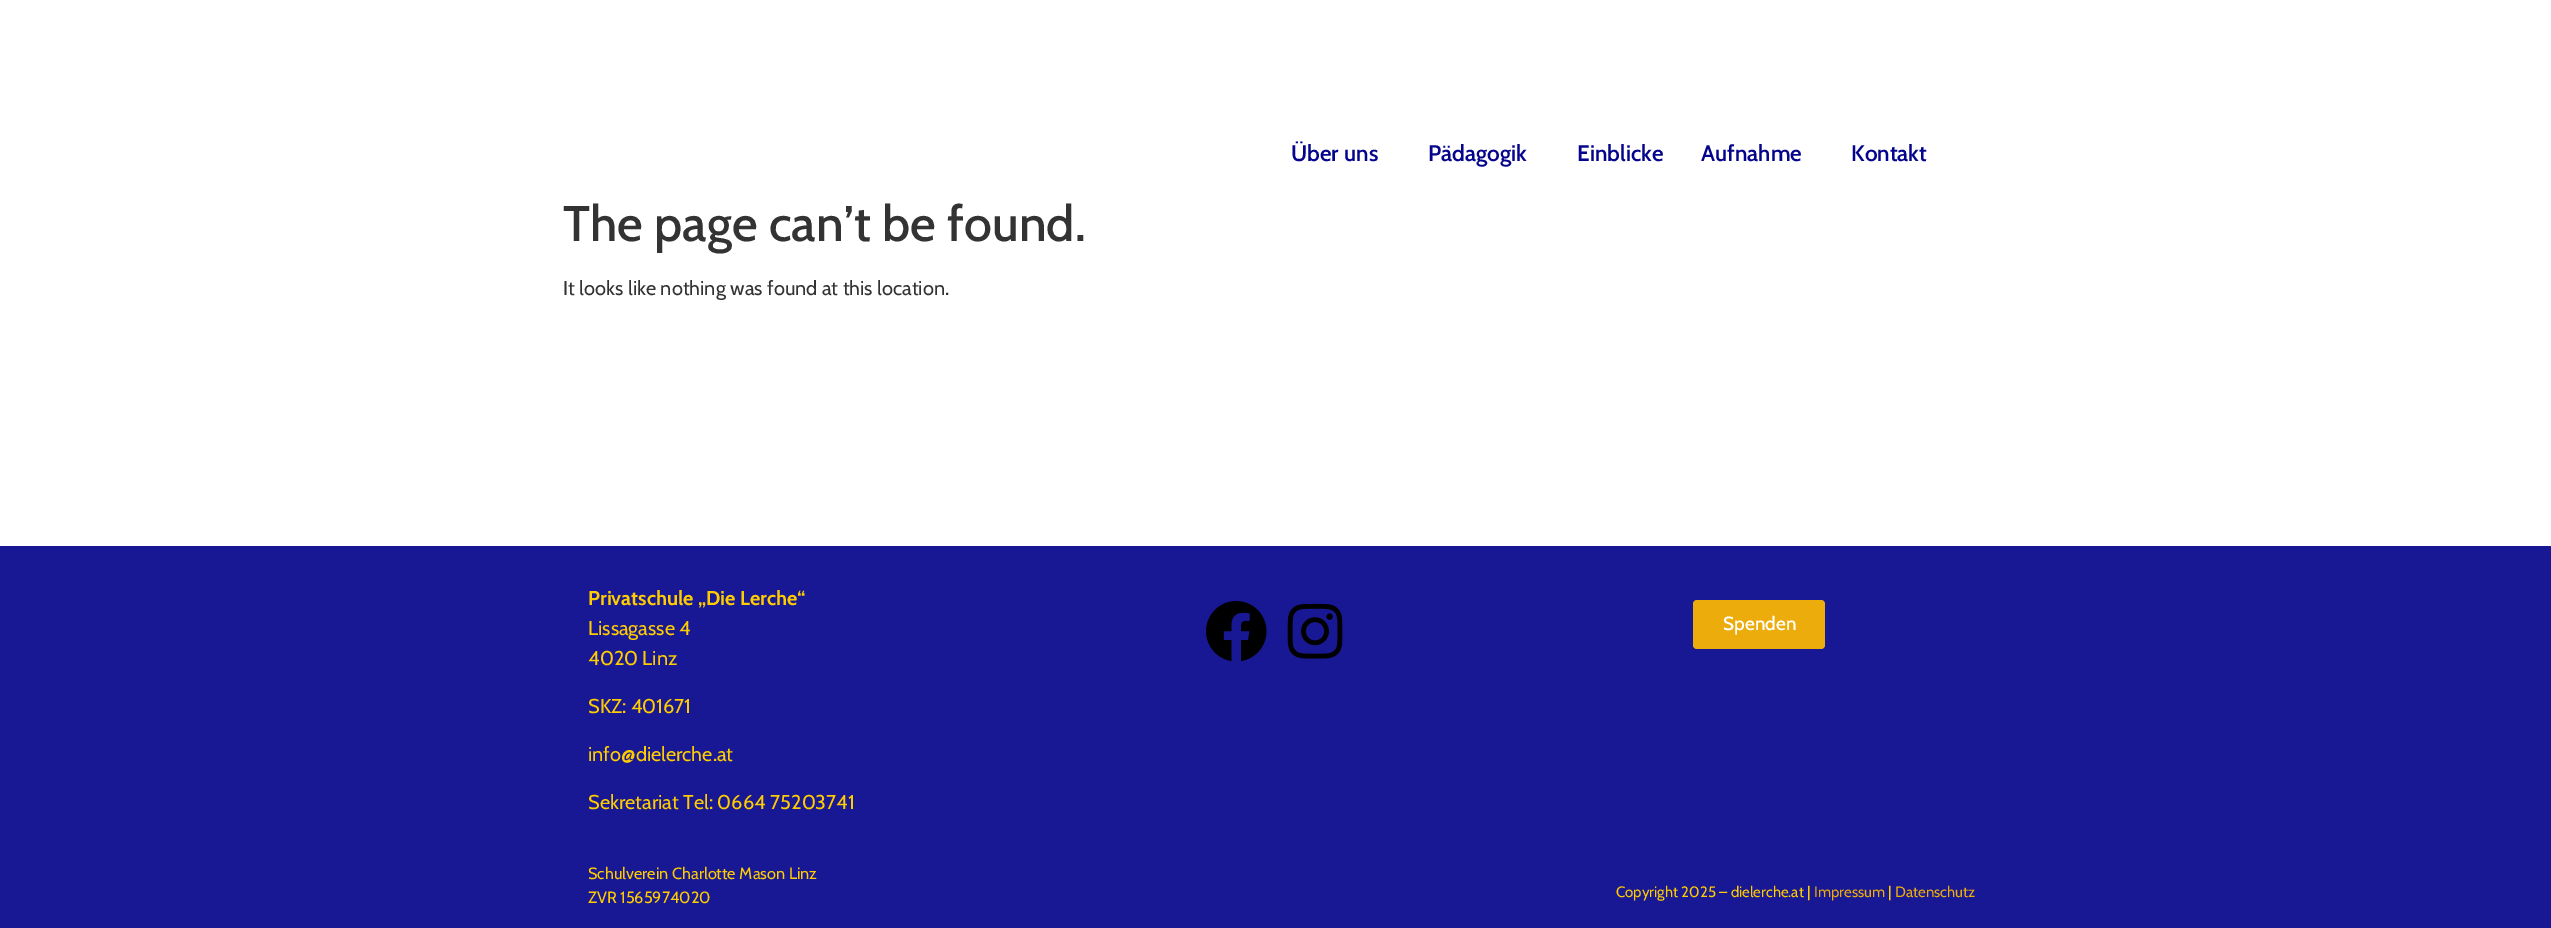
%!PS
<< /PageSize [2551 928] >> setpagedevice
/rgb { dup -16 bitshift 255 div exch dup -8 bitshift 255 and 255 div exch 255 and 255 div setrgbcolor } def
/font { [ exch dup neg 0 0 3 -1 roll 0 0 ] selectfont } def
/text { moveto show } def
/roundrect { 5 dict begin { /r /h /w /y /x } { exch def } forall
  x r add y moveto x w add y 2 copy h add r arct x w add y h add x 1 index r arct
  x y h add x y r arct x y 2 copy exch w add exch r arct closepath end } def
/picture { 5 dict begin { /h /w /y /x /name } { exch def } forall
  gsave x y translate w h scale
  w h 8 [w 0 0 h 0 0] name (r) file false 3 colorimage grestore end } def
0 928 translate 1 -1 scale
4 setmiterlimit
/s1 { /Cabin-SemiBold 22.5 font 16#04048C rgb } def
/s2 { /Cabin-Medium 50 font 16#333333 rgb } def
/s3 { /Cabin-Regular 20 font 16#333333 rgb } def
/s4 { /Cabin-Bold 20 font 16#FFCC00 rgb } def
/s5 { /Cabin-Regular 20 font 16#FFCC00 rgb } def
/s6 { /Cabin-Regular 16.25 font 16#FFCC00 rgb } def
/s7 { /Cabin-Medium 19 font 16#FFFFFF rgb } def
/s8 { /Cabin-Regular 15 font 16#FFCC00 rgb } def
/s9 { /Cabin-Regular 15 font 16#ECAC0C rgb } def
16#FFFFFF rgb
0 0 2551 928 rectfill
s1
(Über uns) 1291 161 text
(Pädagogik) 1428 161 text
(Einblicke) 1577 161 text
(Aufnahme) 1701 161 text
(Kontakt) 1851 161 text
s2
(The page can’t be found.) 563 241 text
s3
(It looks like nothing was found at this location.) 563 295 text
16#181895 rgb
0 546 2551 382 rectfill
s4
(Privatschule „Die Lerche“) 588 605 text
s5
(Lissagasse 4) 588 635 text
(4020 Linz) 588 665 text
(SKZ: 401671) 588 713 text
(info@dielerche.at) 588 761 text
(Sekretariat Tel: 0664 75203741) 588 809 text
s6
(Schulverein Charlotte Mason Linz) 588 879 text
(ZVR 1565974020) 588 903 text
(pic1.raw) 1206 601 61 61 picture
(pic2.raw) 1287 603 56 56 picture
16#ECAC0C rgb
1693 600 132 49 4 roundrect fill
s7
(Spenden) 1723 630 text
s8
(Copyright 2025 – dielerche.at |) 1616 897 text
s9
(Impressum) 1814 897 text
s8
(|) 1888 897 text
s9
(Datenschutz) 1895 897 text
showpage
